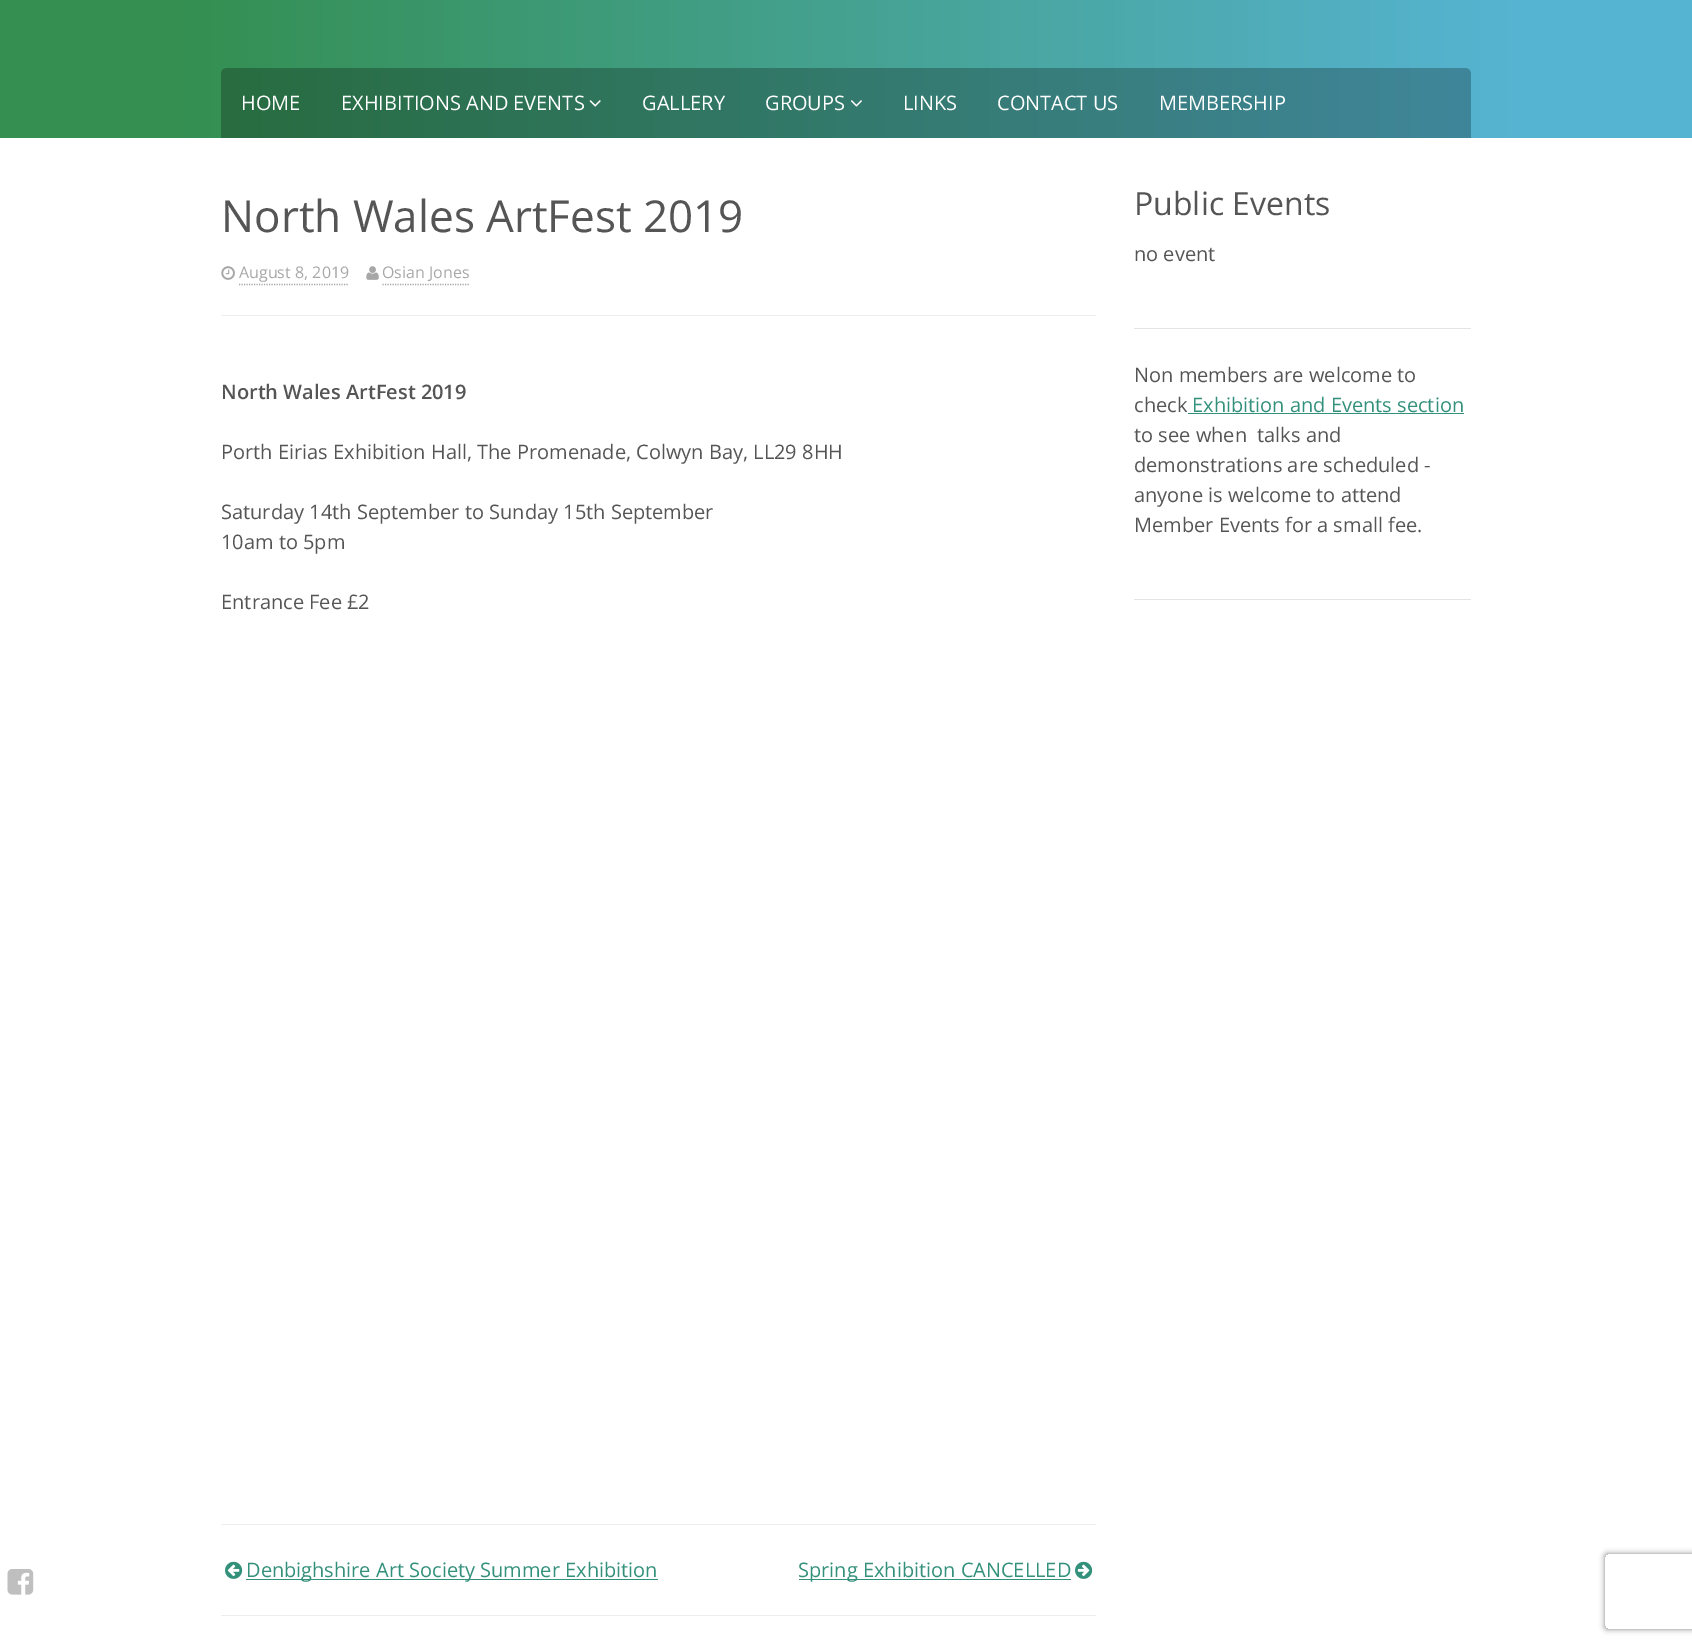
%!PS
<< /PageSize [1692 1646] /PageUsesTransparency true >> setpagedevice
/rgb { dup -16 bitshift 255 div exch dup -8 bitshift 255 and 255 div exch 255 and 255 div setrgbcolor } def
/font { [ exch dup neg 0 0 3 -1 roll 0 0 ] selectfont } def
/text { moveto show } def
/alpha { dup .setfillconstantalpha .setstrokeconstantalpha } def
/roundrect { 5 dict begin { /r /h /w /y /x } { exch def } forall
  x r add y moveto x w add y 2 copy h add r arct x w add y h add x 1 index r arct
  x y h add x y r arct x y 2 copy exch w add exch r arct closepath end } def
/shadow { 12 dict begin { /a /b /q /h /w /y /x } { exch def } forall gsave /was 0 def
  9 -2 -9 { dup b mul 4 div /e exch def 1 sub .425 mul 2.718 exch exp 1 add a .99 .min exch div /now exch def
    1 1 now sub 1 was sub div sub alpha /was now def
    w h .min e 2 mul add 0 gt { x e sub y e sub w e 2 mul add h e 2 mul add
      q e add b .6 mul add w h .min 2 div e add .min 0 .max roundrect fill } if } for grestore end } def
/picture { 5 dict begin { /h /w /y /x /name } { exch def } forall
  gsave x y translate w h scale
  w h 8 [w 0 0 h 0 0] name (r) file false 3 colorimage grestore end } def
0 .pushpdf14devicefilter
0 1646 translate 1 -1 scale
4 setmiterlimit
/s1 { /OpenSans-Regular 20 font 16#FFFFFF rgb } def
/s2 { /OpenSans-Regular 44 font 16#555555 rgb } def
/s3 { /OpenSans-Regular 16 font 16#A7A7A7 rgb } def
/s4 { /OpenSans-SemiBold 20 font 16#555555 rgb } def
/s5 { /OpenSans-Regular 20 font 16#555555 rgb } def
/s6 { /OpenSans-Regular 20 font 16#33907B rgb } def
/s7 { /OpenSans-Regular 32 font 16#555555 rgb } def
16#FFFFFF rgb
0 0 1692 1646 rectfill
gsave 0 0 moveto 1692 0 lineto 1692 138 lineto 0 138 lineto closepath clip newpath
<< /ShadingType 2 /ColorSpace /DeviceRGB /Coords [0 4.4 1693 4.4] /Extend [true true] /Function << /FunctionType 3 /Domain [0 1] /Functions [<< /FunctionType 2 /Domain [0 1] /C0 [0.204 0.561 0.314] /C1 [0.204 0.561 0.314] /N 1 >> << /FunctionType 2 /Domain [0 1] /C0 [0.204 0.561 0.314] /C1 [0.337 0.706 0.827] /N 1 >> << /FunctionType 2 /Domain [0 1] /C0 [0.337 0.706 0.827] /C1 [0.337 0.706 0.827] /N 1 >>] /Bounds [0.1 0.9] /Encode [0 1 0 1 0 1] >> >> shfill grestore
0.25 alpha
16#000000 rgb
227 68 moveto 1465 68 lineto 1468.5 68 1471 70.5 1471 74 curveto 1471 138 lineto 221 138 lineto 221 74 lineto 221 70.5 223.5 68 227 68 curveto closepath fill
1 alpha
s1
(HOME) 241 110 text
(EXHIBITIONS AND EVENTS) 341 110 text
(pic1.raw) 589 100 12 7 picture
(GALLERY) 642 110 text
(GROUPS) 765 110 text
(pic2.raw) 850 100 12 7 picture
(LINKS) 903 110 text
(CONTACT US) 997 110 text
(MEMBERSHIP) 1159 110 text
16#EDEDED rgb
221 1524 875 1 rectfill
221 315 875 1 rectfill
s2
(North Wales ArtFest 2019) 221 232 text
(pic3.raw) 221 266 14 14 picture
s3
(August 8, 2019) 239 278 text
1.2 setlinewidth
[1.25 1.25] 0 setdash
239 284.5 moveto 349 284.5 lineto stroke
(pic4.raw) 366 266 13 14 picture
(Osian Jones) 382 278 text
382.5 284.5 moveto 470 284.5 lineto stroke
s4
(North Wales ArtFest 2019) 221 399 text
s5
(Porth Eirias Exhibition Hall, The Promenade, Colwyn Bay, LL29 8HH) 221 459 text
(Saturday 14th September to Sunday 15th September) 221 519 text
(10am to 5pm) 221 549 text
(Entrance Fee £2) 221 609 text
16#EDEDED rgb
221 1615 875 1 rectfill
(pic5.raw) 225 1561 18 18 picture
16#33907B rgb
246 1579 412 1 rectfill
(Denbighshire Art Society Summer Exhibition) 246 1577 text
799 1579 272 1 rectfill
(Spring Exhibition CANCELLED) 798 1577 text
(pic6.raw) 1075 1561 18 18 picture
16#E4E4E4 rgb
1134 328 337 1 rectfill
s7
(Public Events) 1134 215 text
s5
(no event) 1134 261 text
16#E4E4E4 rgb
1134 599 337 1 rectfill
s5
(Non members are welcome to) 1134 382 text
(check) 1134 412 text
s6
(Exhibition and Events section) 1192 412 text
1188 413 276 1 rectfill
s5
(to see when  talks and) 1134 442 text
(demonstrations are scheduled -) 1134 472 text
(anyone is welcome to attend) 1134 502 text
(Member Events for a small fee.) 1134 532 text
(pic7.raw) 7 1569 27 26 picture
gsave
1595 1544 moveto 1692 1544 lineto 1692 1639 lineto 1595 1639 lineto closepath 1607.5 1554 moveto 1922.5 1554 lineto 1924 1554 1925 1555 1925 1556.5 curveto 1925 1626.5 lineto 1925 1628 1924 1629 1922.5 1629 curveto 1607.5 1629 lineto 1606 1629 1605 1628 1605 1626.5 curveto 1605 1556.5 lineto 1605 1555 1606 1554 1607.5 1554 curveto closepath eoclip newpath
16#808080 rgb
1605 1554 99 75 2.5 3 1 shadow
grestore
.poppdf14devicefilter showpage
